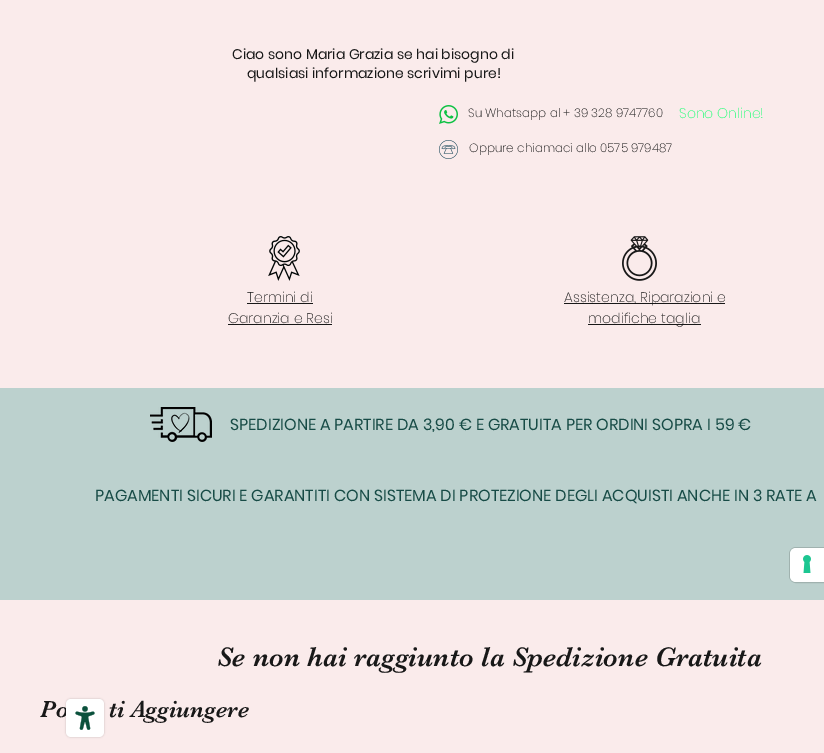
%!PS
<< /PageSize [824 753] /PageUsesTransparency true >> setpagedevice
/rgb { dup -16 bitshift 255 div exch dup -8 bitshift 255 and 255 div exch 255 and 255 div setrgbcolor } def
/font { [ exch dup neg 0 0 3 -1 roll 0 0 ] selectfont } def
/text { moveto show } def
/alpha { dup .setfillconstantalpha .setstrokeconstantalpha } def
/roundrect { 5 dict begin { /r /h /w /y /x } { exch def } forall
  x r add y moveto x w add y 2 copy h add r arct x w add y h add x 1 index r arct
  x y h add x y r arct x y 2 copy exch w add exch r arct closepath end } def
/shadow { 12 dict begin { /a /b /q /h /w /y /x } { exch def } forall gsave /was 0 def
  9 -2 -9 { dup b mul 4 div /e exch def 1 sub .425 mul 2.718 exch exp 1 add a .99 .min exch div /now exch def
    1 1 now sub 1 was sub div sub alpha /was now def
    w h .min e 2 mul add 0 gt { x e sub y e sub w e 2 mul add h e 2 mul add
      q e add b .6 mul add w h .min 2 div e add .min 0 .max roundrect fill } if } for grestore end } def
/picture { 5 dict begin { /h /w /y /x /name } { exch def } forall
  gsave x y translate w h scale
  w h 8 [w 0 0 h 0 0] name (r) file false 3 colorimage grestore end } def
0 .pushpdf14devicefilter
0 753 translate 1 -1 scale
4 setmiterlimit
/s1 { /Poppins-Regular 14 font 16#181818 rgb } def
/s2 { /Poppins-ExtraLight 12 font 16#181818 rgb } def
/s3 { /Poppins-ExtraLight 14 font 16#21FF76 rgb } def
/s4 { /Poppins-ExtraLight 14 font 16#181818 rgb } def
/s5 { /Poppins-Regular 16 font 16#174B46 rgb } def
/s6 { /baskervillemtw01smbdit-Regular 28 font 16#181818 rgb } def
/s7 { /baskervillemtw01smbdit-Regular 24 font 16#181818 rgb } def
16#FAEBEB rgb
0 0 824 753 rectfill
s1
(Ciao sono Maria Grazia se hai bisogno di) 232 59 text
(qualsiasi informazione scrivimi pure!) 247 78 text
(pic1.raw) 439 105 19 19 picture
s2
(Su Whatsapp al + 39 328 9747760) 468 117 text
s3
(Sono Online!) 679 118 text
(pic2.raw) 439 140 19 19 picture
s2
(Oppure chiamaci allo 0575 979487) 469 152 text
(pic3.raw) 268 236 32 45 picture
(pic4.raw) 622 236 35 45 picture
s4
(Termini di) 247 302 text
247 303 66 1 rectfill
(Garanzia e Resi) 228 323 text
228 324 104 1 rectfill
564 303 161 1 rectfill
(Assistenza, Riparazioni e) 564 302 text
588 324 113 1 rectfill
(modifiche taglia) 588 323 text
16#BCD1CE rgb
0 388 824 212 rectfill
(pic6.raw) 171 412 19 21 picture
(pic5.raw) 150 407 62 35 picture
s5
(SPEDIZIONE A PARTIRE DA 3,90 € E GRATUITA PER ORDINI SOPRA I 59 €) 230 430 text
(PAGAMENTI SICURI E GARANTITI CON SISTEMA DI PROTEZIONE DEGLI ACQUISTI ANCHE IN 3 RATE A) 95 501 text
s6
(Se non hai raggiunto la Spedizione Gratuita) 217 666 text
s7
(Po) 40 717 text
(ti Aggiungere) 109 717 text
16#A0B2AF rgb
796 547.5 moveto 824.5 547.5 lineto 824.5 582.5 lineto 796 582.5 lineto 792.5 582.5 789.5 579.5 789.5 576 curveto 789.5 554 lineto 789.5 550.5 792.5 547.5 796 547.5 curveto closepath stroke
16#FFFFFF rgb
796 548 moveto 824 548 lineto 824 582 lineto 796 582 lineto 792.5 582 790 579.5 790 576 curveto 790 554 lineto 790 550.5 792.5 548 796 548 curveto closepath fill
(pic7.raw) 803 555 8 18 picture
16#000000 rgb
66 699 38 38 5 1 0.2 shadow
16#FFFFFF rgb
66 699 38 38 5 roundrect fill
(pic8.raw) 75 706 20 24 picture
.poppdf14devicefilter showpage
